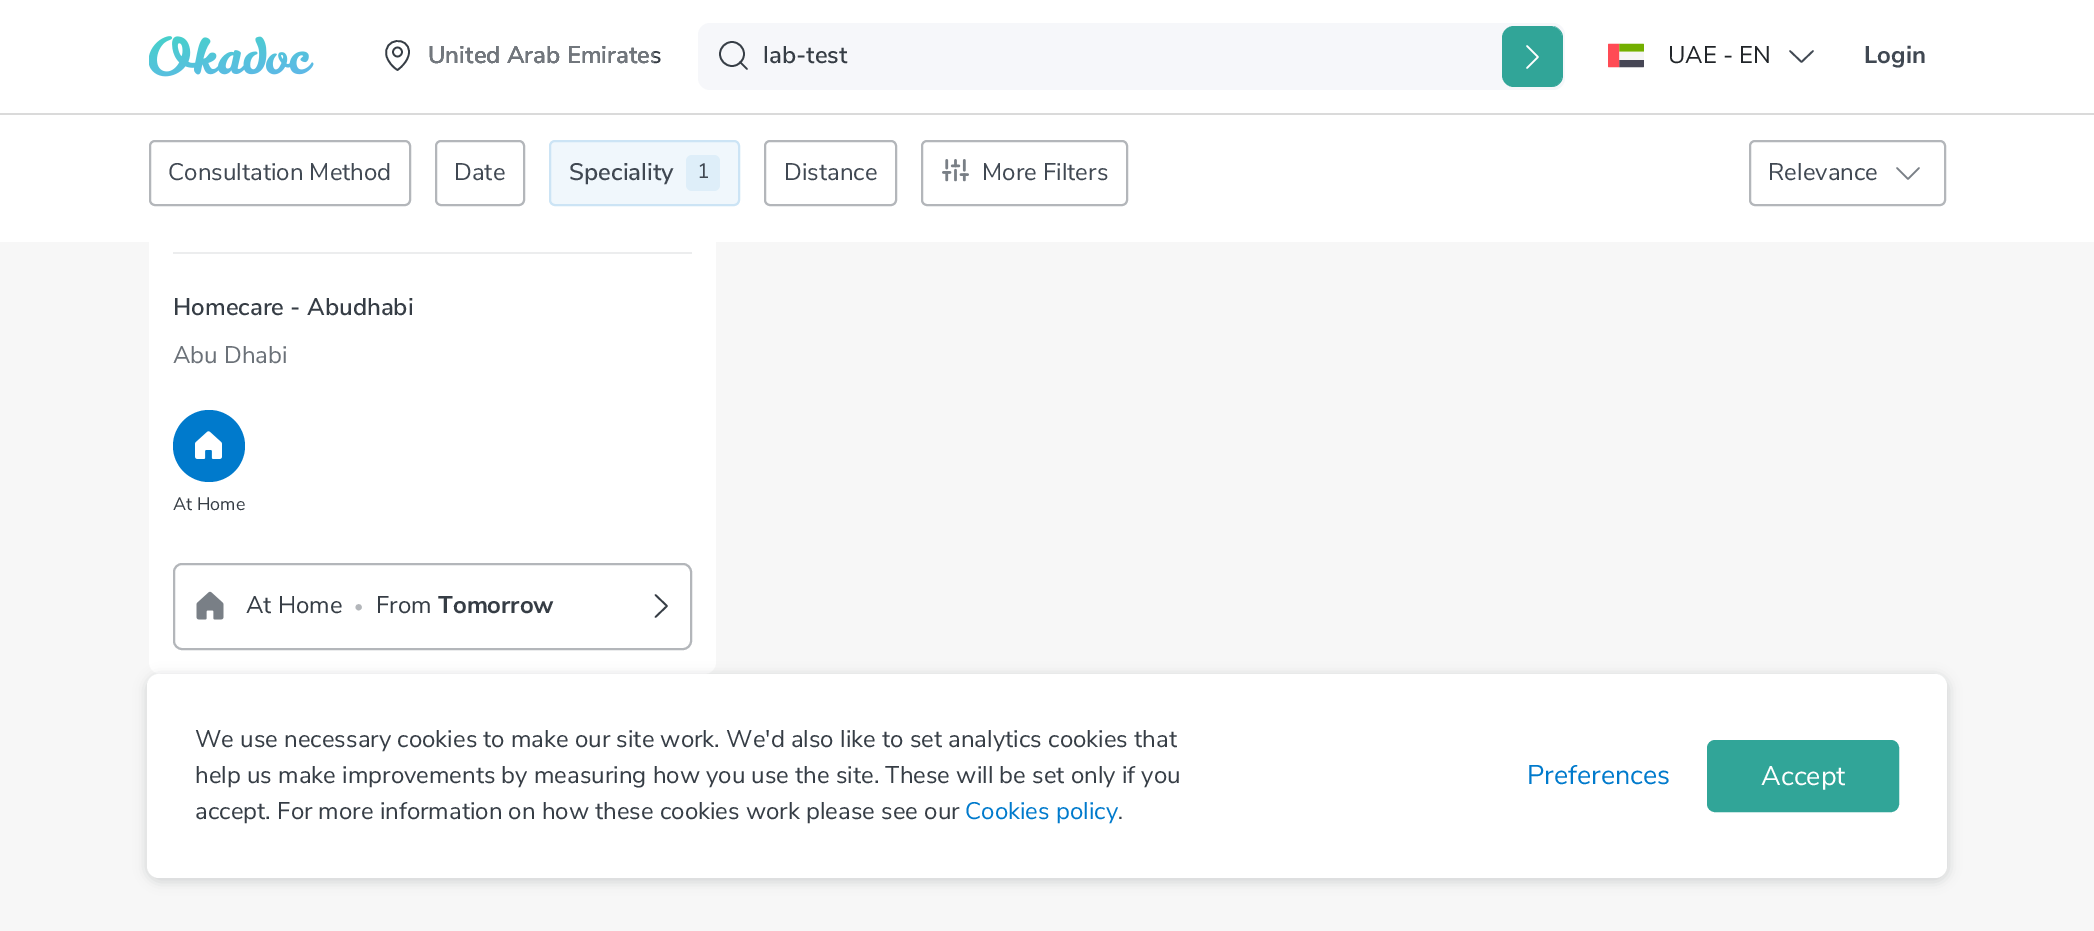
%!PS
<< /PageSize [2094 931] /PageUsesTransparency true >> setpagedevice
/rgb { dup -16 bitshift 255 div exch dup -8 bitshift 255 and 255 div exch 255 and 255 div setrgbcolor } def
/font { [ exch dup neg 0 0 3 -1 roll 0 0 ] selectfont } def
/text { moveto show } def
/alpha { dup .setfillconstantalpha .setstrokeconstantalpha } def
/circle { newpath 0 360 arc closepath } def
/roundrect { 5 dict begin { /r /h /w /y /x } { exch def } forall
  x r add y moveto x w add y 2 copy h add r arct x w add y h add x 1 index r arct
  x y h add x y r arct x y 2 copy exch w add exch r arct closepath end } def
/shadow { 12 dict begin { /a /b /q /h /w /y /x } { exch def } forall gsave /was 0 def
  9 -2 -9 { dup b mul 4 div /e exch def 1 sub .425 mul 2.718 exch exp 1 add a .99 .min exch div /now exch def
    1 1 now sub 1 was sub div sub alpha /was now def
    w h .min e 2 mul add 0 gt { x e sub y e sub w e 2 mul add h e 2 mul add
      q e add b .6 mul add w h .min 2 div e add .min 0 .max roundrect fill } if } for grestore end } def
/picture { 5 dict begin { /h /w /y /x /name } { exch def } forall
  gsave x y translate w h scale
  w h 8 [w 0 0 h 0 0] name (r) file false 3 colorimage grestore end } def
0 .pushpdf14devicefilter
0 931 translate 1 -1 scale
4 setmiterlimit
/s1 { /NunitoSans-SemiBold 24 font 16#363D45 rgb } def
/s2 { /NunitoSans-SemiBold 24 font 16#72777D rgb } def
/s3 { /NunitoSans-Regular 24 font 16#212529 rgb } def
/s4 { /NunitoSans-Bold 24 font 16#404852 rgb } def
/s5 { /NunitoSans-Regular 24 font 16#404852 rgb } def
/s6 { /NunitoSans-SemiBold 24 font 16#404852 rgb } def
/s7 { /NunitoSans-Regular 21 font 16#404852 rgb } def
/s8 { /NunitoSans-Regular 24 font 16#6B7178 rgb } def
/s9 { /NunitoSans-Regular 18 font 16#363D45 rgb } def
/s10 { /NunitoSans-Regular 24 font 16#363D45 rgb } def
/s11 { /NunitoSans-Regular 18 font 16#B3B6BA rgb } def
/s12 { /NunitoSans-Bold 24 font 16#363D45 rgb } def
/s13 { /NunitoSans-Regular 24 font 16#007ACC rgb } def
/s14 { /NunitoSans-Regular 21 font 16#363D45 rgb } def
/s15 { /NunitoSans-Regular 27 font 16#007ACC rgb } def
/s16 { /NunitoSans-Regular 27 font 16#FFFFFF rgb } def
16#F7F7F7 rgb
0 0 2094 931 rectfill
16#FFFFFF rgb
149 110 567 564 12 roundrect fill
0 0 2094 113 rectfill
16#DADADA rgb
0 113 2094 2 rectfill
(pic1.raw) 149 36 165 41 picture
16#363D45 rgb
1.7 setlinewidth
397.5 52 4.5 circle stroke
1 setlinecap
1 setlinejoin
409 52 moveto 409 62 397.5 70 397.5 70 curveto 392.5 67 388 61.5 386.5 56 curveto 382.5 38 409 35.5 409 52 curveto closepath stroke
s1
(United Arab Emirates) 428 63 text
gsave
428 38 226 36 rectclip
s2
(United Arab Emirates) 428 63 text
grestore
16#F6F7FA rgb
698 23 867 67 12 roundrect fill
16#363D45 rgb
0 setlinecap
0 setlinejoin
732 54 12 circle stroke
1 setlinecap
1 setlinejoin
740 62 moveto 747 69 lineto stroke
(lab-test) 763 63 text
16#31A598 rgb
1550 87 moveto 1551 87 lineto 1558 87 1563 82 1563 75 curveto 1563 38 lineto 1563 32 1559 28 1554 26 curveto 1558 28 1562 32 1562 38 curveto 1562 75 lineto 1562 82 1556 87 1550 87 curveto closepath fill
1502 26 60 61 12 roundrect fill
16#FFFFFF rgb
1527 46 moveto 1538 57 lineto 1527 68 lineto stroke
(pic2.raw) 1608 43 36 25 picture
s3
(UAE - EN) 1668 63 text
16#404852 rgb
1813 51 moveto 1801.5 62 lineto 1790 51 lineto stroke
s4
(Login) 1864 63 text
16#FFFFFF rgb
0 115 2094 127 rectfill
16#B3B6BA rgb
2 setlinewidth
0 setlinecap
0 setlinejoin
150 141 260 64 5 roundrect stroke
s5
(Consultation Method) 168 180 text
16#B3B6BA rgb
436 141 88 64 5 roundrect stroke
s5
(Date) 454 180 text
16#F0F7FC rgb
550 141 189 64 5 roundrect gsave fill grestore
16#CCE4F5 rgb
stroke
s6
(Speciality) 569 180 text
16#DEEEF9 rgb
686 155 34 36 6 roundrect fill
s7
(1) 697 178 text
16#B3B6BA rgb
765 141 131 64 5 roundrect stroke
s5
(Distance) 784 180 text
16#B3B6BA rgb
922 141 205 64 5 roundrect stroke
(pic3.raw) 942 159 27 23 picture
s5
(More Filters) 982 180 text
16#B3B6BA rgb
1750 141 195 64 5 roundrect stroke
s5
(Relevance) 1768 180 text
16#797F86 rgb
1.7 setlinewidth
1 setlinecap
1 setlinejoin
1919 168 moveto 1908 179 lineto 1897 168 lineto stroke
16#ECEDEE rgb
173 252 519 2 rectfill
s1
(Homecare - Abudhabi) 173 315 text
s8
(Abu Dhabi) 173 363 text
16#007ACC rgb
209 446 36 circle fill
(pic4.raw) 195 431 27 28 picture
s9
(At Home) 173 510 text
16#B3B6BA rgb
2 setlinewidth
0 setlinecap
0 setlinejoin
174 564 517 85 8 roundrect stroke
(pic5.raw) 196 591 28 29 picture
s10
(At Home) 246 613 text
s11
(•) 354 612 text
s10
(From) 376 613 text
s12
(Tomorrow) 438 613 text
1.7 setlinewidth
1 setlinecap
1 setlinejoin
655.5 595 moveto 667 606 lineto 655.5 617 lineto stroke
16#404852 rgb
146 675 1803 207 14 6 0.2 shadow
16#FFFFFF rgb
147 674 1800 204 12 roundrect fill
s10
(We use necessary cookies to make our site work. We'd also like to set analytics cookies that) 195 747 text
(help us make improvements by measuring how you use the site. These will be set only if you) 195 783 text
(accept. For more information on how these cookies work please see our) 195 819 text
s13
(Cookies policy) 965 819 text
s14
(.) 1118 819 text
s15
(Preferences) 1527 784 text
16#31A598 rgb
1708 741 190 70 7 roundrect gsave fill grestore
2 setlinewidth
0 setlinecap
0 setlinejoin
stroke
s16
(Accept) 1761 785 text
.poppdf14devicefilter showpage
